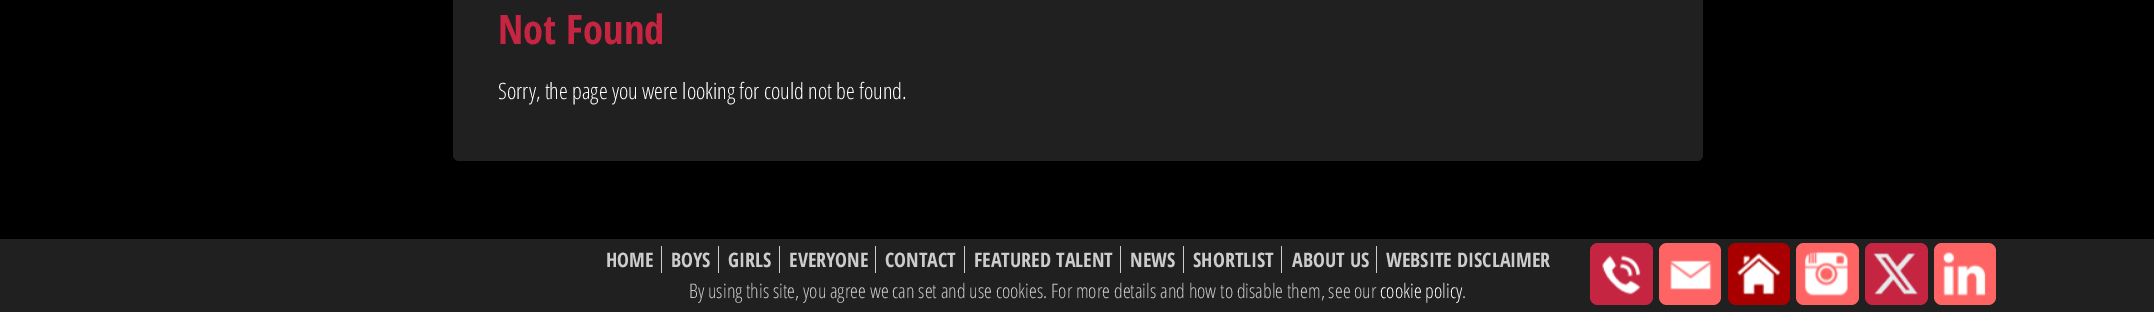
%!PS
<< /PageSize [2154 312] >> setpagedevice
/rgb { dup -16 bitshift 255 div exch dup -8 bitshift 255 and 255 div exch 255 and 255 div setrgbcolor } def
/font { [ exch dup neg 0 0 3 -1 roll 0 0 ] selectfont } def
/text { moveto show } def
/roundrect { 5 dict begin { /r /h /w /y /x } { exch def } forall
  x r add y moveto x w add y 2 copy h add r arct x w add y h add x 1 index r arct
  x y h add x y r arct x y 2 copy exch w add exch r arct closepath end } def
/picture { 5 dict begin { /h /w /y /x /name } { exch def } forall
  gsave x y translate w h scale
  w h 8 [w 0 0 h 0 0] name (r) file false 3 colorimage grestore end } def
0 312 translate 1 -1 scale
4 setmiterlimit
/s1 { /OpenSansCondensed-Bold 40.5 font 16#C52541 rgb } def
/s2 { /OpenSansCondensed-Light 22.5 font 16#FFFFFF rgb } def
/s3 { /OpenSansCondensed-Bold 20 font 16#CCCCCC rgb } def
/s4 { /OpenSansCondensed-Light 20 font 16#CCCCCC rgb } def
/s5 { /OpenSansCondensed-Light 20 font 16#FFFFFF rgb } def
16#000000 rgb
0 0 2154 312 rectfill
16#202020 rgb
453 -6 1250 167 6 roundrect fill
s1
(Not Found) 498 44 text
s2
(Sorry, the page you were looking for could not be found.) 498 99 text
16#202020 rgb
0 239 2154 73 rectfill
16#CCCCCC rgb
661 246 1 27 rectfill
s3
(HOME) 606 267 text
718 246 1 27 rectfill
(BOYS) 671 267 text
779 246 1 27 rectfill
(GIRLS) 728 267 text
875 246 1 27 rectfill
(EVERYONE) 789 267 text
964 246 1 27 rectfill
(CONTACT) 885 267 text
1120 246 1 27 rectfill
(FEATURED TALENT) 974 267 text
1183 246 1 27 rectfill
(NEWS) 1130 267 text
1281 246 1 27 rectfill
(SHORTLIST) 1193 267 text
1376 246 1 27 rectfill
(ABOUT US) 1292 267 text
(WEBSITE DISCLAIMER) 1386 267 text
16#C52541 rgb
1590 243 63 62 8 roundrect fill
(pic1.raw) 1602 255 39 40 picture
16#FF6464 rgb
1659 243 62 62 8 roundrect fill
(pic2.raw) 1670 260 42 30 picture
16#A80000 rgb
1728 243 62 62 8 roundrect fill
(pic3.raw) 1737 253 44 42 picture
16#FF6464 rgb
1796 243 63 62 8 roundrect fill
(pic4.raw) 1804 251 44 45 picture
16#C52541 rgb
1865 243 63 62 8 roundrect fill
(pic5.raw) 1873 253 45 42 picture
16#FF6464 rgb
1934 243 62 62 8 roundrect fill
(pic6.raw) 1943 252 43 44 picture
s4
(By using this site, you agree we can set and use cookies. For more details and how to disable them, see our) 689 298 text
s5
(cookie policy) 1380 298 text
s4
(.) 1462 298 text
showpage
